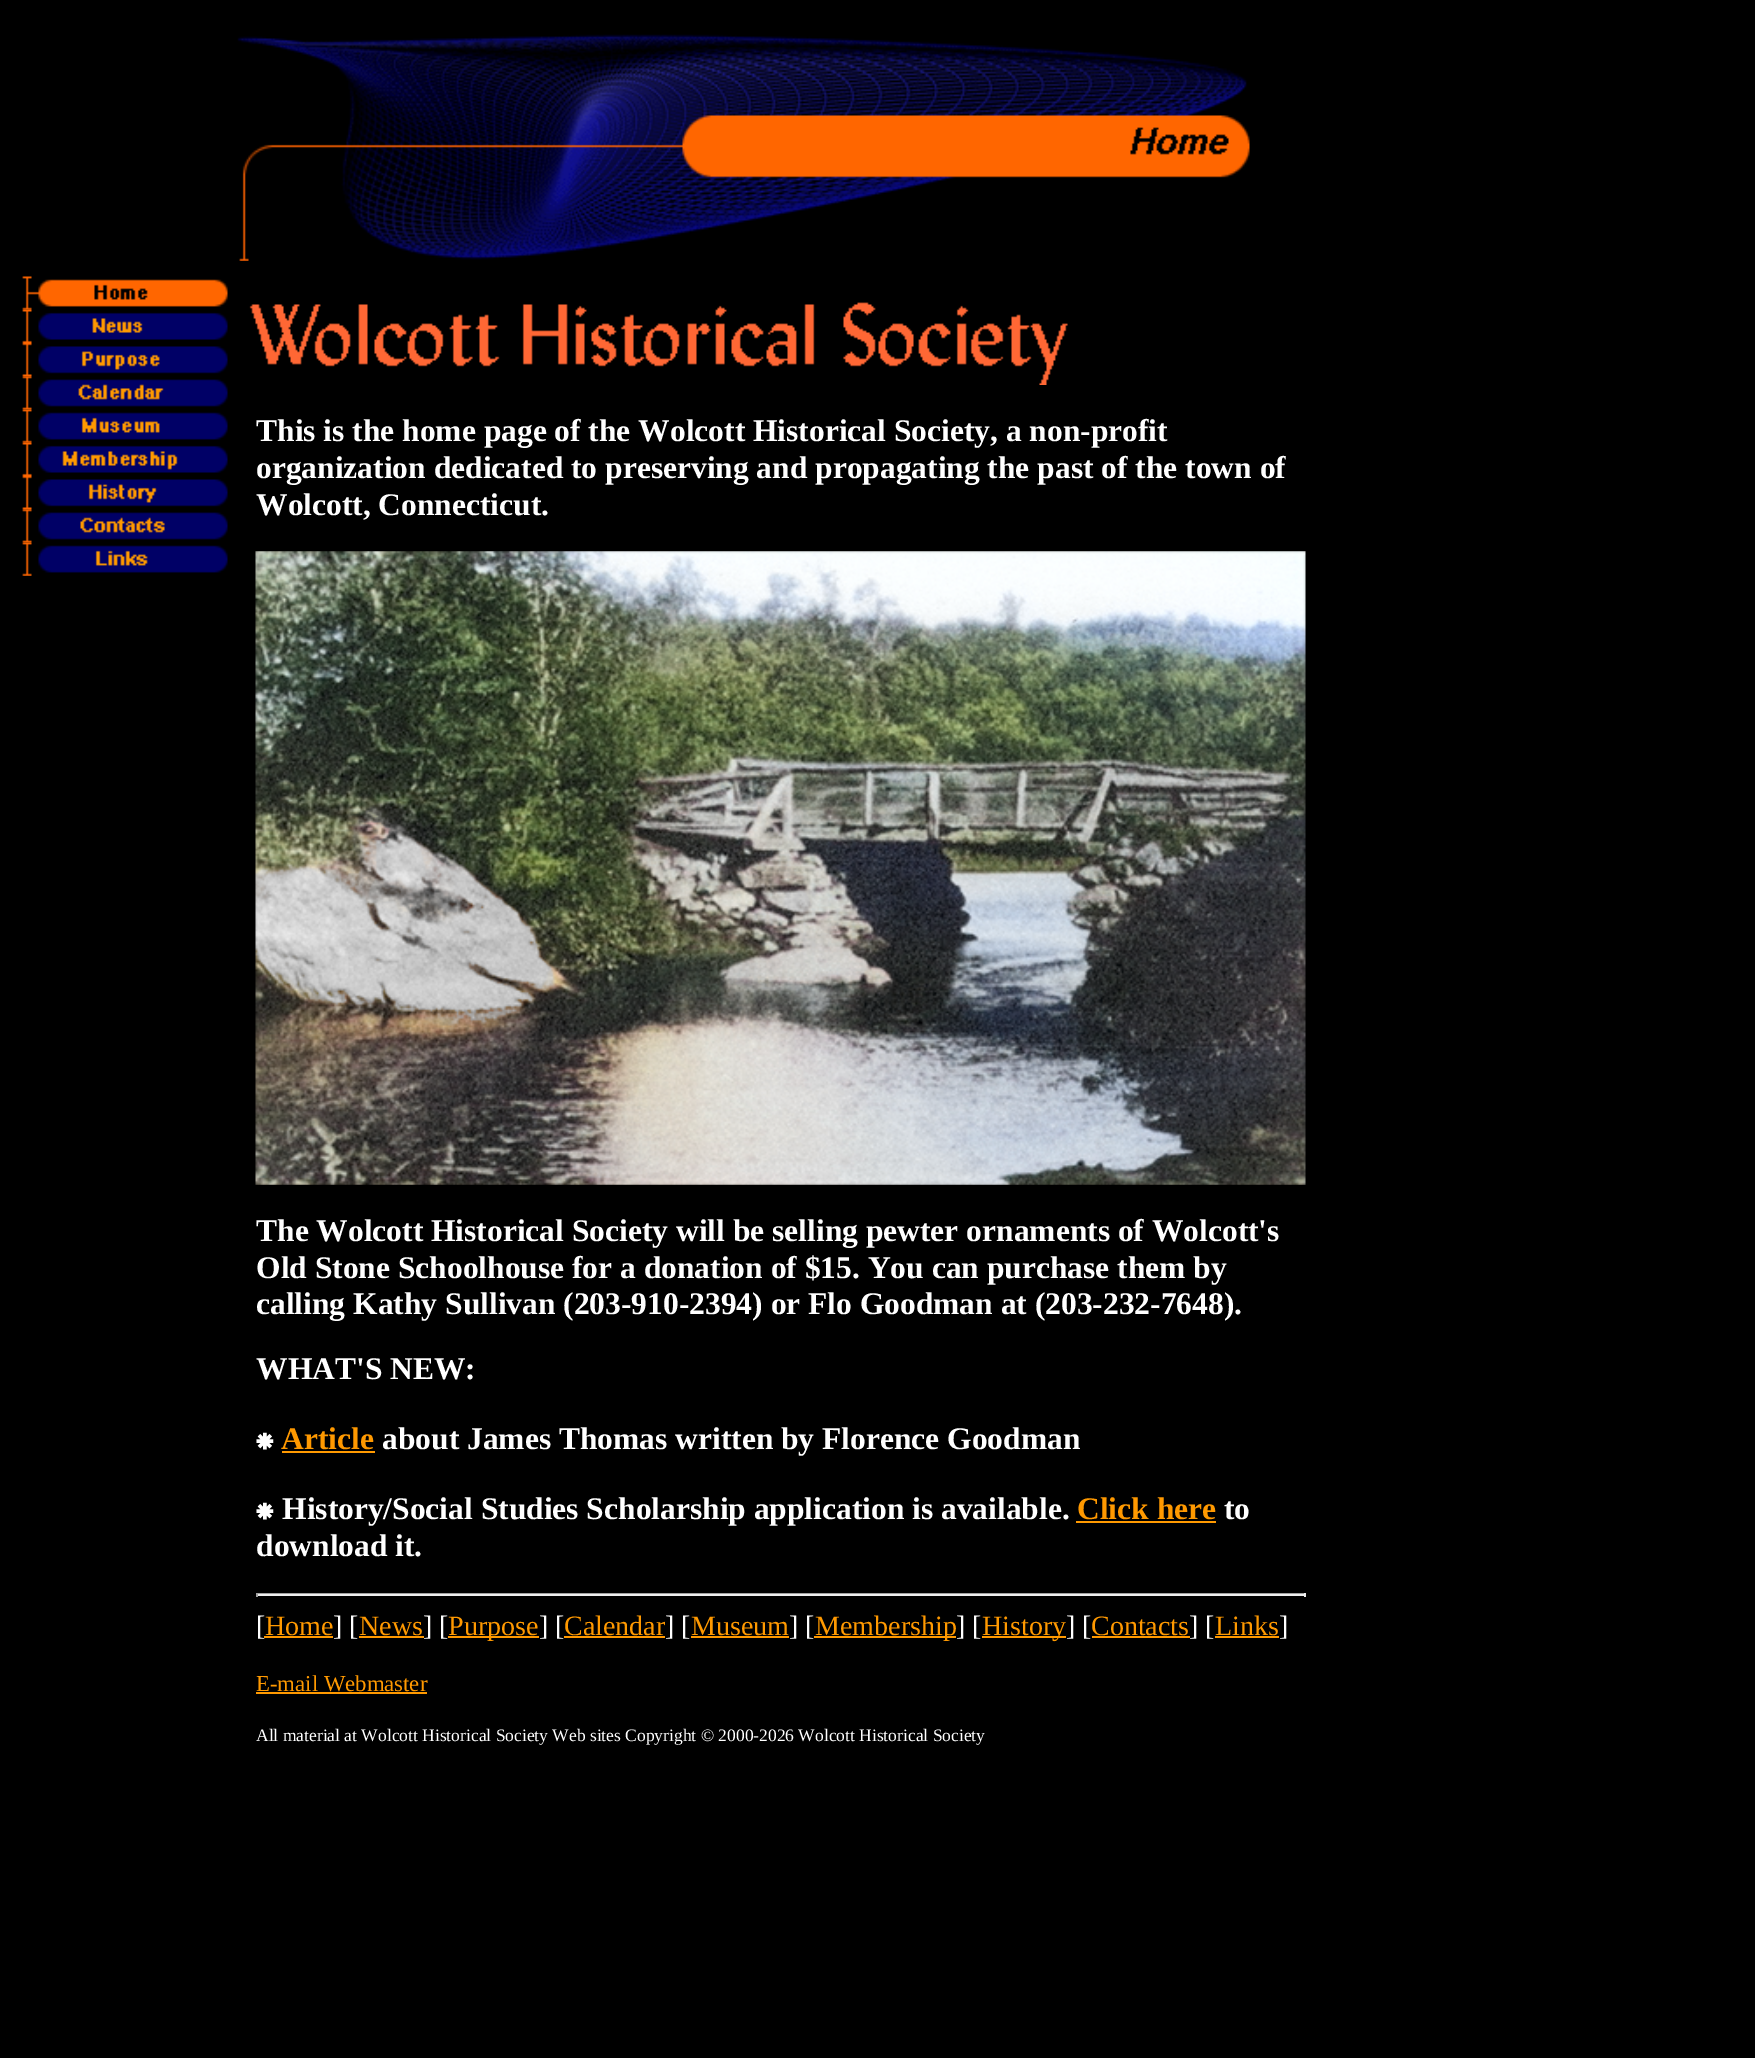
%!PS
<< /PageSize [1755 2058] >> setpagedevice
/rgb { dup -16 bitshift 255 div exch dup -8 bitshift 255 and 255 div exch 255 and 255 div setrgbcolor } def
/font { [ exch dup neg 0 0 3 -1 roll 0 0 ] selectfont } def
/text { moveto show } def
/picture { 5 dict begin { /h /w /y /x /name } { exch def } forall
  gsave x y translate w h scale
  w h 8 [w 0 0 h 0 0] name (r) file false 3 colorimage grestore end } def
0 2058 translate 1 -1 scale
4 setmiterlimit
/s1 { /LiberationSerif-Bold 31.5 font 16#FFFFFF rgb } def
/s2 { /NotoSans-Black 31.5 font 16#FFFFFF rgb } def
/s3 { /LiberationSerif-Bold 31.5 font 16#FF9900 rgb } def
/s4 { /LiberationSerif-Regular 28 font 16#FFFFFF rgb } def
/s5 { /LiberationSerif-Regular 28 font 16#FF9900 rgb } def
/s6 { /LiberationSerif-Regular 22.75 font 16#FF9900 rgb } def
/s7 { /LiberationSerif-Regular 17.5 font 16#FFFFFF rgb } def
16#000000 rgb
0 0 1755 2058 rectfill
(pic1.raw) 22 276 206 34 picture
(pic2.raw) 22 309 206 34 picture
(pic3.raw) 22 343 206 34 picture
(pic4.raw) 22 376 206 34 picture
(pic5.raw) 22 409 206 34 picture
(pic6.raw) 22 442 206 34 picture
(pic7.raw) 22 476 206 34 picture
(pic8.raw) 22 509 206 34 picture
(pic9.raw) 22 542 206 34 picture
(pic10.raw) 237 34 1013 227 picture
(pic11.raw) 249 302 819 83 picture
s1
(This is the home page of the Wolcott Historical Society, a non-profit) 256 441 text
(organization dedicated to preserving and propagating the past of the town of) 256 478 text
(Wolcott, Connecticut.) 256 515 text
(pic12.raw) 255 551 1051 634 picture
(The Wolcott Historical Society will be selling pewter ornaments of Wolcott's) 256 1241 text
(Old Stone Schoolhouse for a donation of $15. You can purchase them by) 256 1278 text
(calling Kathy Sullivan \(203-910-2394\) or Flo Goodman at \(203-232-7648\).) 256 1314 text
(WHAT'S NEW:) 256 1379 text
s2
(⁕) 256 1449 text
s3
(Article) 281 1449 text
282 1451 93 2 rectfill
s1
(about James Thomas written by Florence Goodman) 382 1449 text
s2
(⁕) 256 1519 text
s1
(History/Social Studies Scholarship application is available.) 282 1519 text
s3
(Click here) 1077 1519 text
1076 1521 140 2 rectfill
s1
(to) 1224 1519 text
(download it.) 256 1556 text
16#9F9F9F rgb
256 1593 1050 1 rectfill
16#EEEEEE rgb
1304 1593 2 4 rectfill
256 1594 1050 2 rectfill
16#9F9F9F rgb
256 1593 2 4 rectfill
s4
([) 256 1635 text
s5
(Home) 265 1635 text
264 1636 69 2 rectfill
s4
(] [) 333 1635 text
s5
(News) 359 1635 text
359 1636 65 2 rectfill
s4
(] [) 423 1635 text
16#FF9900 rgb
448 1636 91 2 rectfill
(Purpose) 448 1635 text
s4
(] [) 539 1635 text
s5
(Calendar) 564 1635 text
564 1636 101 2 rectfill
s4
(] [) 665 1635 text
s5
(Museum) 691 1635 text
691 1636 98 2 rectfill
s4
(] [) 789 1635 text
16#FF9900 rgb
814 1636 142 2 rectfill
(Membership) 815 1635 text
s4
(] [) 956 1635 text
16#FF9900 rgb
982 1636 84 2 rectfill
(History) 982 1635 text
s4
(] [) 1066 1635 text
s5
(Contacts) 1091 1635 text
1092 1636 98 2 rectfill
s4
(] [) 1189 1635 text
s5
(Links) 1215 1635 text
1215 1636 64 2 rectfill
s4
(]) 1279 1635 text
s6
(E-mail Webmaster) 256 1691 text
256 1692 171 2 rectfill
s7
(All material at Wolcott Historical Society Web sites Copyright © 2000-2026 Wolcott Historical Society) 256 1741 text
showpage
